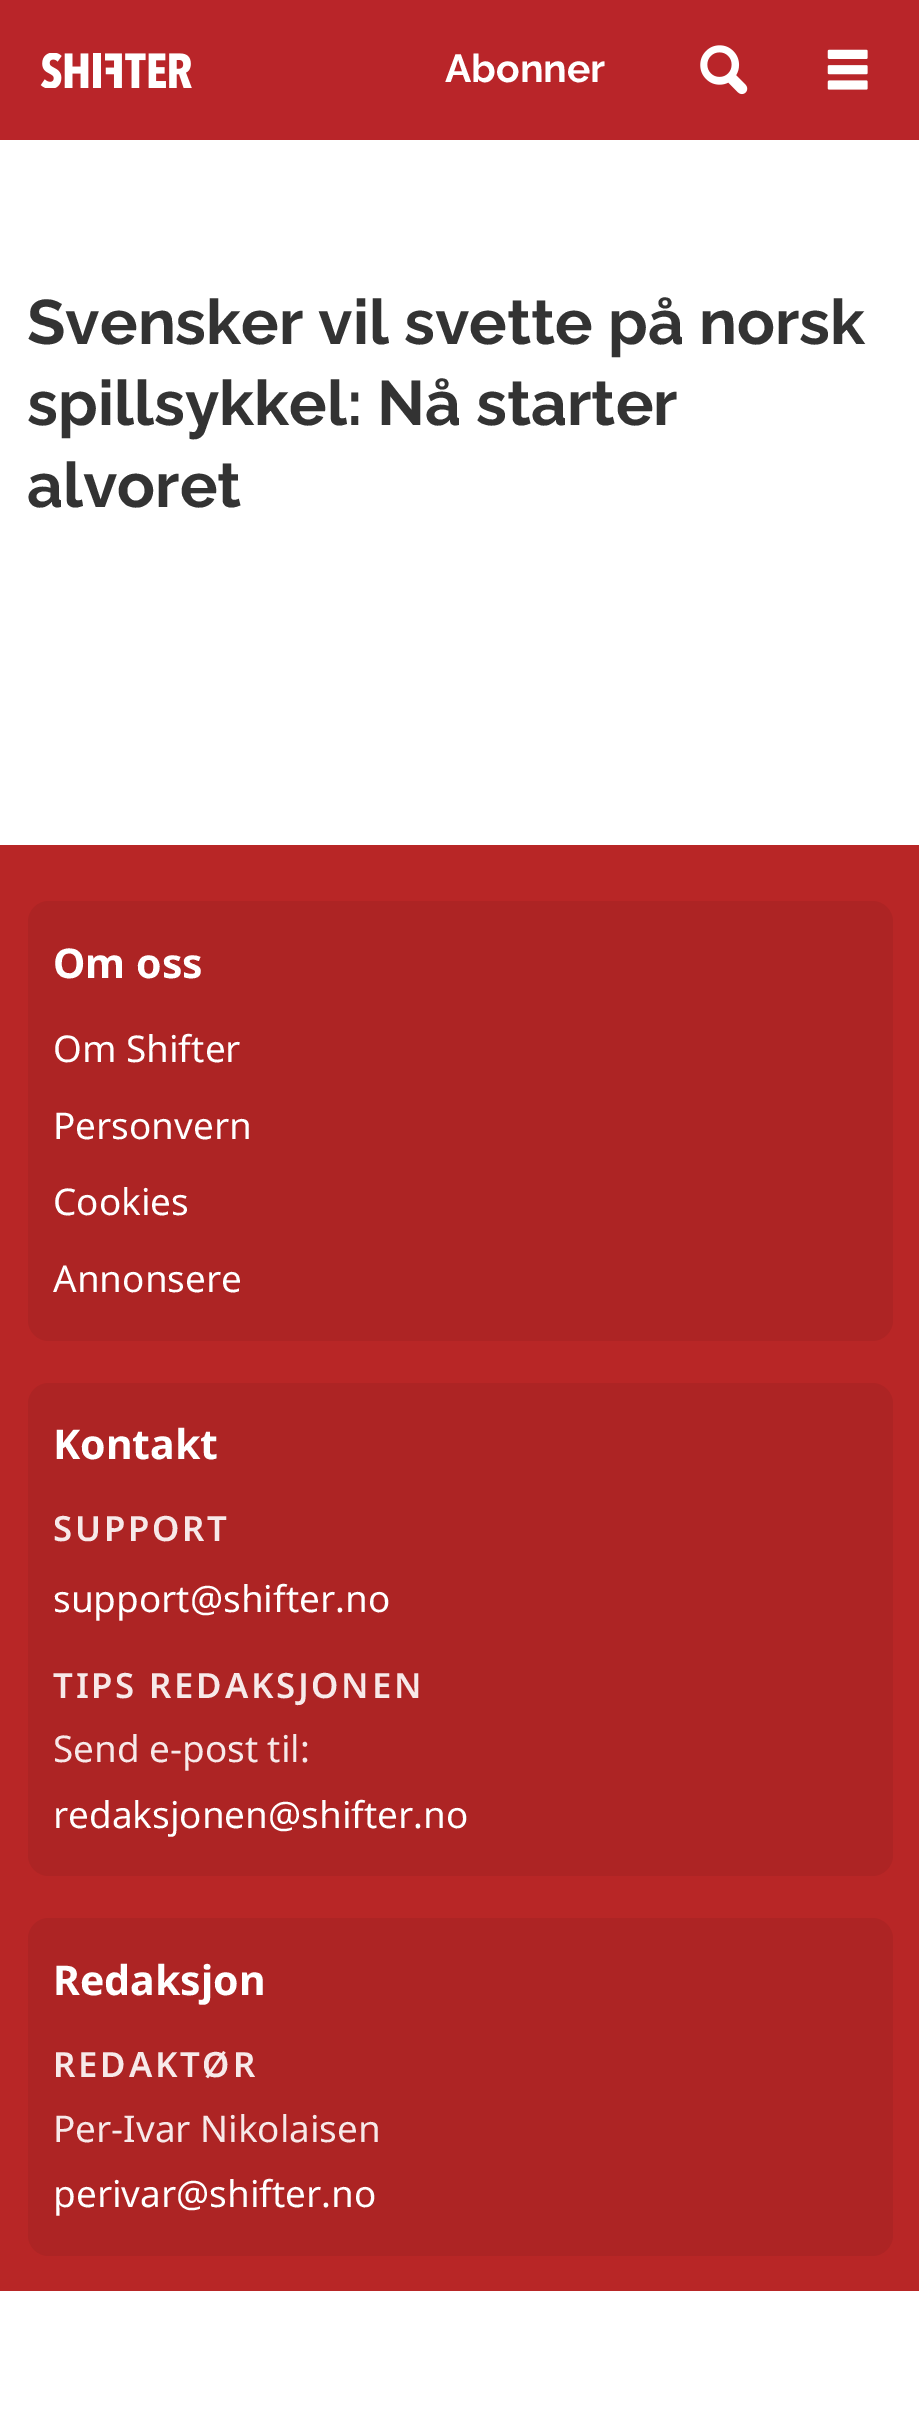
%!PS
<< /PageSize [919 2432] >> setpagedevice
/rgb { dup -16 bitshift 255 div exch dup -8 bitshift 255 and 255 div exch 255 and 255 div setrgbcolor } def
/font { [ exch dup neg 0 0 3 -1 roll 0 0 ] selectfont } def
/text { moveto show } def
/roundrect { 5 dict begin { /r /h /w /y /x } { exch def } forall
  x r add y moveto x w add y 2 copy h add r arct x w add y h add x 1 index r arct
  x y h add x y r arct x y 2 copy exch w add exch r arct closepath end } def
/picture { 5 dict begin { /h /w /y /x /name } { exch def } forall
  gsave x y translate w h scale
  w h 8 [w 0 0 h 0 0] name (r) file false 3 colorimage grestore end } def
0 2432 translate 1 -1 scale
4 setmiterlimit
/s1 { /Raleway-Bold 39 font 16#FFFFFF rgb } def
/s2 { /Raleway-Bold 62.75 font 16#333333 rgb } def
/s3 { /NotoSans-Bold 41 font 16#FFFFFF rgb } def
/s4 { /NotoSans-Regular 36.9 font 16#FFFFFF rgb } def
/s5 { /NotoSans-Regular 36.9 font 16#F7E9E9 rgb } def
16#FFFFFF rgb
0 0 919 2432 rectfill
16#B92529 rgb
0 0 919 140 rectfill
(pic1.raw) 40 53 152 35 picture
s1
(Abonner) 445 82 text
(pic2.raw) 700 45 48 50 picture
(pic3.raw) 827 49 41 41 picture
s2
(Svensker vil svette på norsk) 27 344 text
(spillsykkel: Nå starter) 27 425 text
(alvoret) 27 507 text
16#B82626 rgb
0 845 919 1446 rectfill
16#AD2424 rgb
28 901 865 440 21 roundrect fill
s3
(Om oss) 53 978 text
s4
(Om Shifter) 53 1062 text
(Personvern) 53 1139 text
(Cookies) 53 1215 text
(Annonsere) 53 1292 text
16#AD2424 rgb
28 1383 865 493 21 roundrect fill
s3
(Kontakt) 53 1459 text
/NotoSans-SemiBold 34.8 font
16#F7E9E9 rgb
53 1541 moveto 2.75 0 (SUPPORT) ashow
s4
(support@shifter.no) 53 1612 text
/NotoSans-SemiBold 34.8 font
16#F7E9E9 rgb
53 1698 moveto 2.75 0 (TIPS REDAKSJONEN) ashow
s5
(Send e-post til:) 53 1762 text
s4
(redaksjonen@shifter.no) 53 1828 text
16#AD2424 rgb
28 1918 865 338 21 roundrect fill
s3
(Redaksjon) 53 1995 text
/NotoSans-SemiBold 34.8 font
16#F7E9E9 rgb
53 2077 moveto 2.75 0 (REDAKTØR) ashow
s5
(Per-Ivar Nikolaisen) 53 2142 text
s4
(perivar@shifter.no) 53 2207 text
showpage
